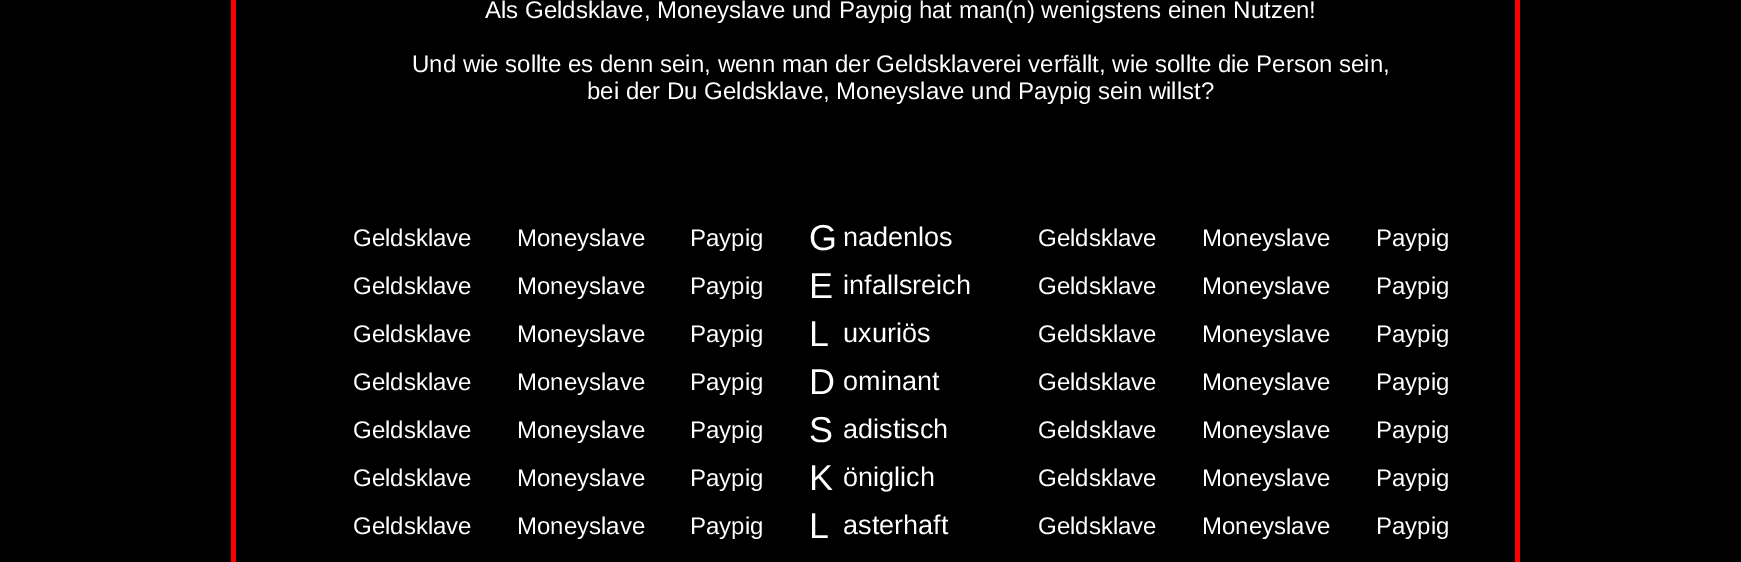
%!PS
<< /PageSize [1741 562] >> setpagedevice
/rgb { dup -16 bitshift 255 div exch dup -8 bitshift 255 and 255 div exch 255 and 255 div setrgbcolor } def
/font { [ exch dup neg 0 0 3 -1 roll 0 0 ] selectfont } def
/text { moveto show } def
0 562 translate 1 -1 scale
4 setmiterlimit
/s1 { /LiberationSans-Regular 24 font 16#FFFFFF rgb } def
/s2 { /LiberationSans-Regular 36 font 16#FFFFFF rgb } def
/s3 { /LiberationSans-Regular 27 font 16#FFFFFF rgb } def
16#000000 rgb
0 0 1741 562 rectfill
16#FF0000 rgb
231 0 5 562 rectfill
s1
(Als Geldsklave, Moneyslave und Paypig hat man\(n\) wenigstens einen Nutzen!) 485 18 text
(Und wie sollte es denn sein, wenn man der Geldsklaverei verfällt, wie sollte die Person sein,) 412 72 text
(bei der Du Geldsklave, Moneyslave und Paypig sein willst?) 587 99 text
(Geldsklave) 353 246 text
(Moneyslave) 517 246 text
(Paypig) 690 246 text
s2
(G) 809 250 text
s3
(nadenlos) 843 246 text
s1
(Geldsklave) 1038 246 text
(Moneyslave) 1202 246 text
(Paypig) 1376 246 text
(Geldsklave) 353 294 text
(Moneyslave) 517 294 text
(Paypig) 690 294 text
s2
(E) 809 298 text
s3
(infallsreich) 843 294 text
s1
(Geldsklave) 1038 294 text
(Moneyslave) 1202 294 text
(Paypig) 1376 294 text
(Geldsklave) 353 342 text
(Moneyslave) 517 342 text
(Paypig) 690 342 text
s2
(L) 809 346 text
s3
(uxuriös) 843 342 text
s1
(Geldsklave) 1038 342 text
(Moneyslave) 1202 342 text
(Paypig) 1376 342 text
(Geldsklave) 353 390 text
(Moneyslave) 517 390 text
(Paypig) 690 390 text
s2
(D) 809 394 text
s3
(ominant) 843 390 text
s1
(Geldsklave) 1038 390 text
(Moneyslave) 1202 390 text
(Paypig) 1376 390 text
(Geldsklave) 353 438 text
(Moneyslave) 517 438 text
(Paypig) 690 438 text
s2
(S) 809 442 text
s3
(adistisch) 843 438 text
s1
(Geldsklave) 1038 438 text
(Moneyslave) 1202 438 text
(Paypig) 1376 438 text
(Geldsklave) 353 486 text
(Moneyslave) 517 486 text
(Paypig) 690 486 text
s2
(K) 809 490 text
s3
(öniglich) 843 486 text
s1
(Geldsklave) 1038 486 text
(Moneyslave) 1202 486 text
(Paypig) 1376 486 text
(Geldsklave) 353 534 text
(Moneyslave) 517 534 text
(Paypig) 690 534 text
s2
(L) 809 538 text
s3
(asterhaft) 843 534 text
s1
(Geldsklave) 1038 534 text
(Moneyslave) 1202 534 text
(Paypig) 1376 534 text
16#FF0000 rgb
1515 0 5 562 rectfill
showpage
